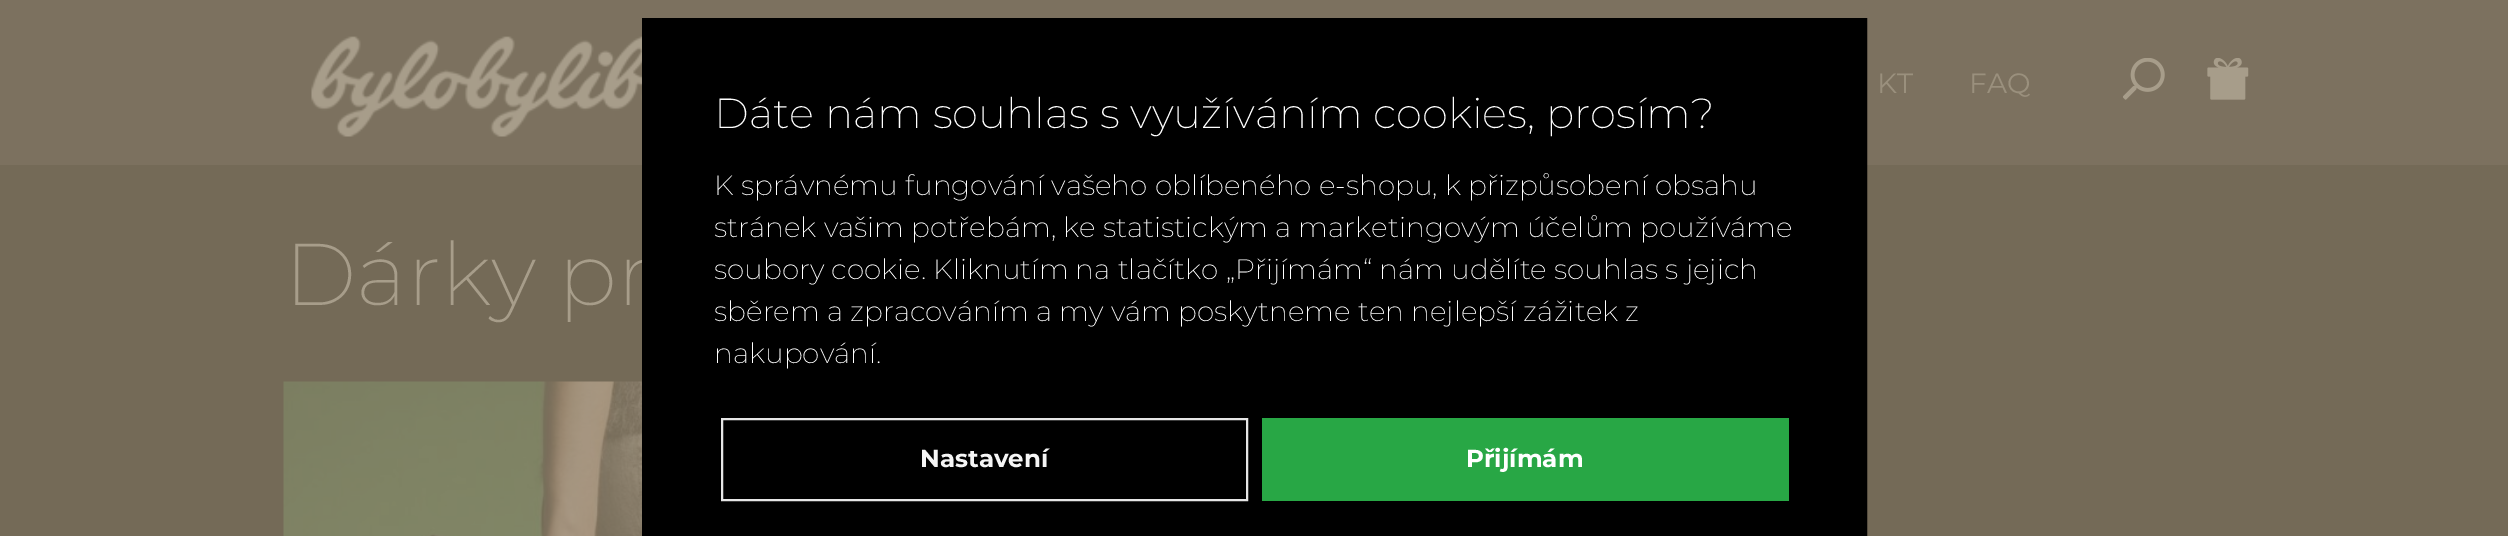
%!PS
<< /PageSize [2508 536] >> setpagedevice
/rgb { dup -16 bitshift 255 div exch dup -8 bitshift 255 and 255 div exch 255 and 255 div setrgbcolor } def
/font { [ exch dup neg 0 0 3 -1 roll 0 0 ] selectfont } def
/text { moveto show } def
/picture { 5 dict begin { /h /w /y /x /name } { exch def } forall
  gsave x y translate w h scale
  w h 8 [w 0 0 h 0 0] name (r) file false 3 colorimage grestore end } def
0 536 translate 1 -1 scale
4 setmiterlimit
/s1 { /Montserrat-Regular 28 font 16#9A907D rgb } def
/s2 { /Montserrat-ExtraLight 87.5 font 16#A79D8A rgb } def
/s3 { /Montserrat-ExtraLight 42 font 16#FFFFFF rgb } def
/s4 { /Montserrat-ExtraLight 28 font 16#FFFFFF rgb } def
/s5 { /Montserrat-Bold 24.5 font 16#F5F5F5 rgb } def
/s6 { /Montserrat-Bold 24.5 font 16#FFFFFF rgb } def
16#746A57 rgb
0 0 2508 536 rectfill
16#7C715F rgb
0 0 2508 165 rectfill
(pic1.raw) 311 36 331 101 picture
s1
(KT) 1877 93 text
(FAQ) 1969 93 text
(pic2.raw) 2123 58 42 42 picture
(pic3.raw) 2207 58 42 42 picture
s2
(Dárky pr) 284 305 text
(pic4.raw) 283 381 359 155 picture
16#000000 rgb
643 19 moveto 1866 19 lineto 1866 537 lineto 643 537 lineto closepath gsave fill grestore
2 setlinewidth
stroke
s3
(Dáte nám souhlas s využíváním cookies, prosím?) 714 128 text
s4
(K správnému fungování vašeho oblíbeného e-shopu, k přizpůsobení obsahu) 714 195 text
(stránek vašim potřebám, ke statistickým a marketingovým účelům používáme) 714 237 text
(soubory cookie. Kliknutím na tlačítko „Přijímám“ nám udělíte souhlas s jejich) 714 279 text
(sběrem a zpracováním a my vám poskytneme ten nejlepší zážitek z) 714 321 text
(nakupování.) 714 363 text
16#E6E6E6 rgb
722 419 525 81 rectstroke
s5
(Nastavení) 920 467 text
16#28A745 rgb
1262 418 527 83 rectfill
s6
(Přijímám) 1466 467 text
showpage
